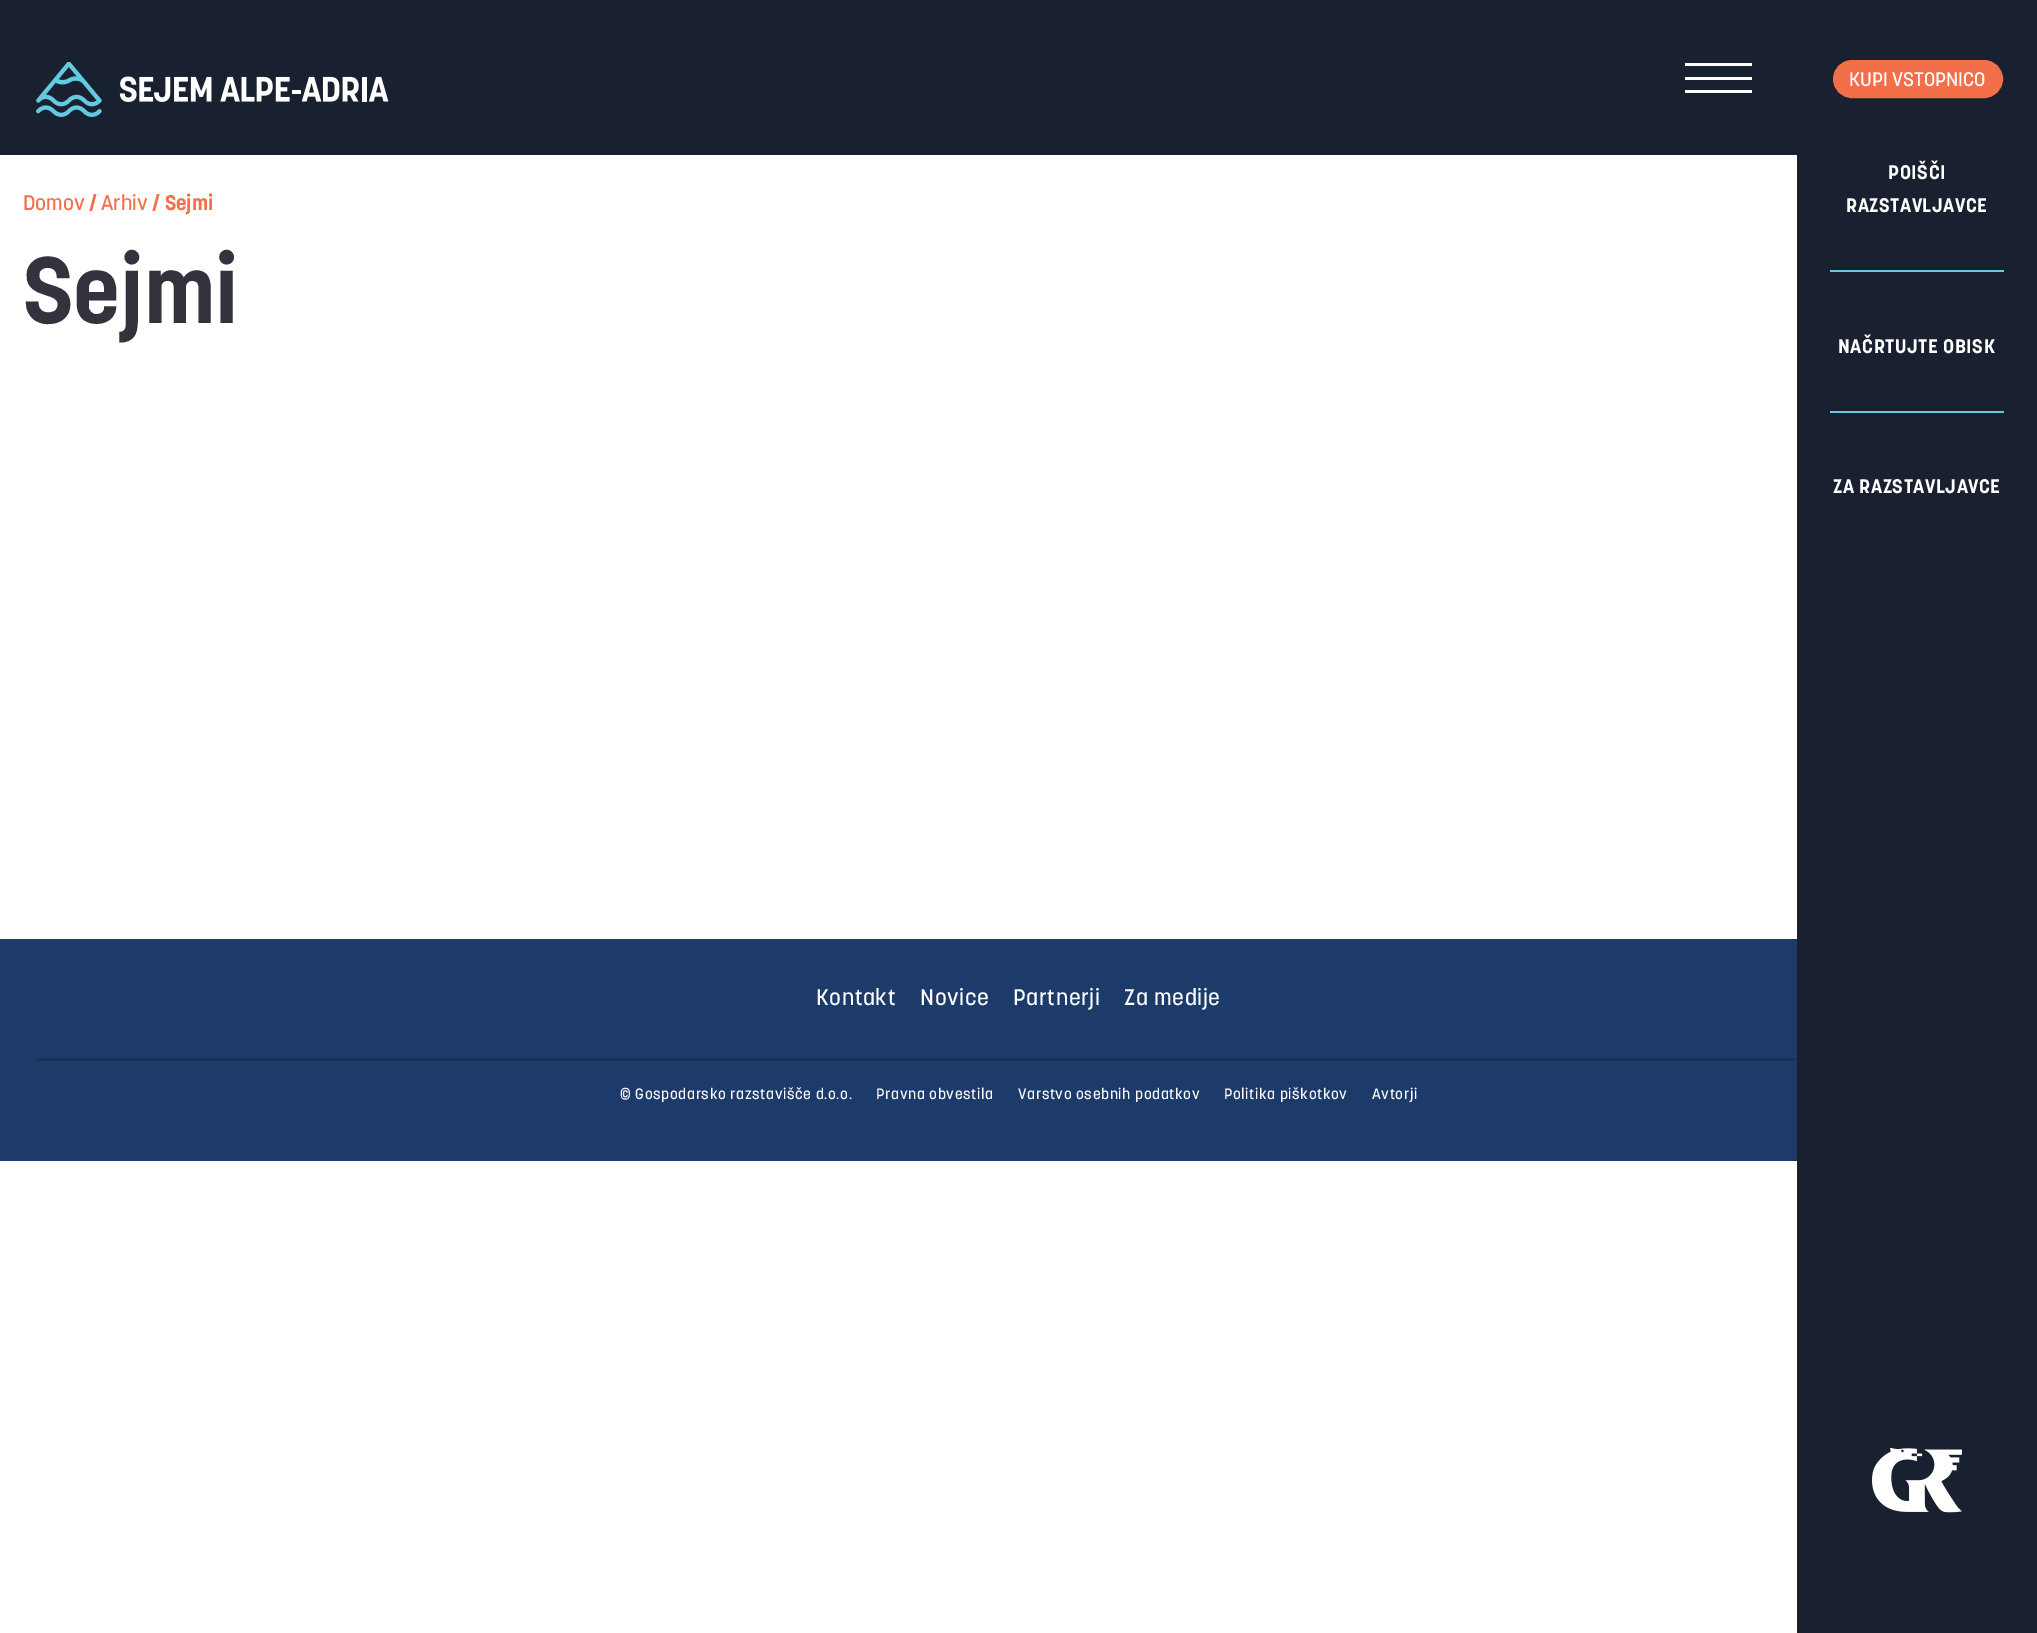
%!PS
<< /PageSize [2037 1633] >> setpagedevice
/rgb { dup -16 bitshift 255 div exch dup -8 bitshift 255 and 255 div exch 255 and 255 div setrgbcolor } def
/font { [ exch dup neg 0 0 3 -1 roll 0 0 ] selectfont } def
/text { moveto show } def
/roundrect { 5 dict begin { /r /h /w /y /x } { exch def } forall
  x r add y moveto x w add y 2 copy h add r arct x w add y h add x 1 index r arct
  x y h add x y r arct x y 2 copy exch w add exch r arct closepath end } def
/picture { 5 dict begin { /h /w /y /x /name } { exch def } forall
  gsave x y translate w h scale
  w h 8 [w 0 0 h 0 0] name (r) file false 3 colorimage grestore end } def
0 1633 translate 1 -1 scale
4 setmiterlimit
/s1 { /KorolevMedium-Medium 21 font 16#F36F49 rgb } def
/s2 { /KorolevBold-Bold 21 font 16#F36F49 rgb } def
/s3 { /KorolevBold-Bold 93 font 16#32333D rgb } def
/s4 { /KorolevMedium-Medium 19.5 font 16#FFFFFF rgb } def
16#FFFFFF rgb
0 0 2037 1633 rectfill
s1
(Domov) 23 210 text
s2
(/) 89 210 text
s1
(Arhiv) 101 210 text
s2
(/ Sejmi) 152 210 text
s3
(Sejmi) 23 323 text
16#192130 rgb
0 0 1797 155 rectfill
(pic1.raw) 36 62 353 55 picture
16#FFFFFF rgb
1685 63 67 3 rectfill
1685 77 67 3 rectfill
1685 90 67 3 rectfill
16#192130 rgb
1797 0 240 1633 rectfill
16#F36F49 rgb
1834 61 168 36 18 roundrect gsave fill grestore
2 setlinewidth
stroke
s4
(KUPI VSTOPNICO) 1849 86 text
16#63CAE1 rgb
1830 270 174 2 rectfill
/KorolevBold-Bold 19.5 font
16#FFFFFF rgb
1888 179 moveto 0.6 0 (POIŠČI) ashow
1846 212 moveto 0.6 0 (RAZSTAVLJAVCE) ashow
16#63CAE1 rgb
1830 411 174 2 rectfill
16#FFFFFF rgb
1838 353 moveto 0.6 0 (NAČRTUJTE OBISK) ashow
1833 493 moveto 0.6 0 (ZA RAZSTAVLJAVCE) ashow
(pic2.raw) 1872 1448 90 65 picture
16#1C3A6A rgb
0 939 1797 222 rectfill
/KorolevMedium-Medium 22.5 font
16#FFFFFF rgb
816 1005 moveto 0.6 0 (Kontakt) ashow
920 1005 moveto 0.6 0 (Novice) ashow
1013 1005 moveto 0.6 0 (Partnerji) ashow
1124 1005 moveto 0.6 0 (Za medije) ashow
16#1B3156 rgb
36 1058 1761 3 rectfill
/KorolevMedium-Medium 15 font
16#FFFFFF rgb
620 1099 moveto 0.6 0 (© Gospodarsko razstavišče d.o.o.) ashow
876 1099 moveto 0.6 0 (Pravna obvestila) ashow
1018 1099 moveto 0.6 0 (Varstvo osebnih podatkov) ashow
1224 1099 moveto 0.6 0 (Politika piškotkov) ashow
1372 1099 moveto 0.6 0 (Avtorji) ashow
showpage
